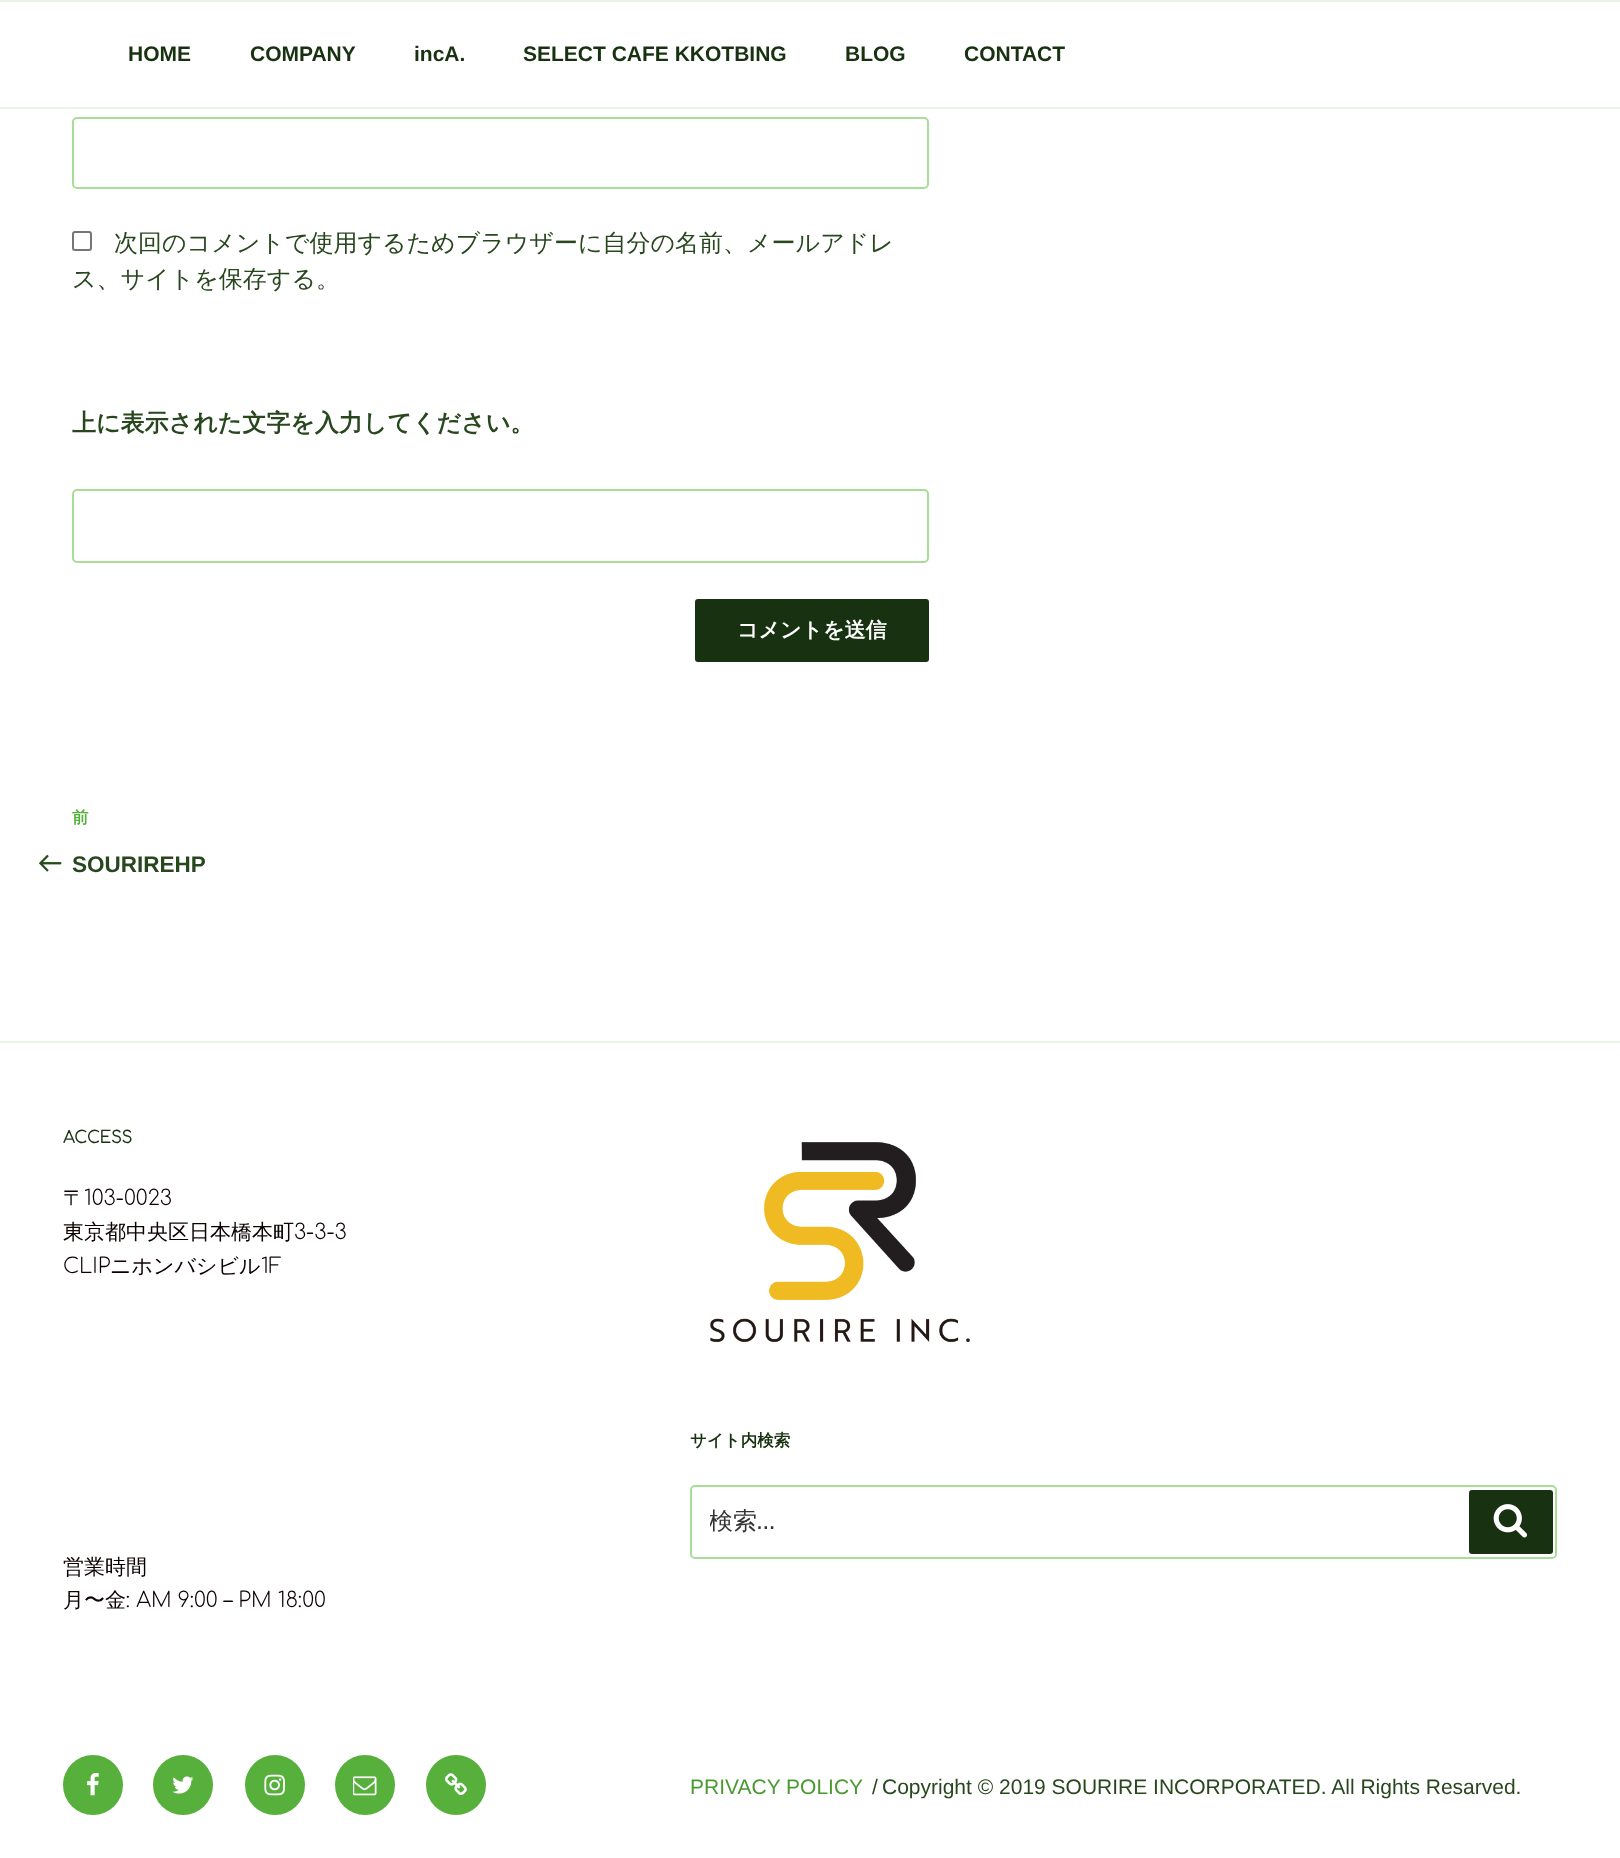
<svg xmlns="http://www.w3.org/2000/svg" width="1620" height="1858">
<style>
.a{font:bold 21px Liberation Sans;fill:#183211}
.b{font:500 24px WenQuanYi Zen Hei;fill:#28471f}
.c{font:bold 24px WenQuanYi Zen Hei;fill:#28471f}
.d{font:bold 21px WenQuanYi Zen Hei;fill:#fff}
.e{font:bold 16.5px WenQuanYi Zen Hei;fill:#56b03b}
.f{font:bold 22.5px Liberation Sans;fill:#28471f}
.g{font:bold 16.5px Comfortaa;fill:#183211}
.h{font:500 21px WenQuanYi Zen Hei;fill:#0c0000}
.i{font:300 21px Comfortaa;fill:#0c0000}
.j{font:bold 16.5px WenQuanYi Zen Hei;fill:#183211}
.k{font:500 24px WenQuanYi Zen Hei;fill:#333}
.l{font:24px Libre Franklin;fill:#333}
.m{font:21px Liberation Sans;fill:#4b9933}
.n{font:21px Liberation Sans;fill:#28471f}
</style>
<defs>
<clipPath id="clip1"><path d="M710 1508h823v31H710z"/></clipPath>
</defs>
<rect width="100%" height="100%" fill="#fff"/>
<path fill="#e8f6e4" d="M0 0h1620v2H0z"/>
<path fill="#e8f6e4" d="M0 107h1620v2H0z"/>
<rect fill="none" stroke="#a8dd98" stroke-width="2" x="73" y="118" width="855" height="70" rx="4"/>
<rect fill="none" stroke="#767676" stroke-width="2" x="73" y="232" width="18" height="18" rx="2"/>
<rect fill="none" stroke="#a8dd98" stroke-width="2" x="73" y="490" width="855" height="72" rx="4"/>
<rect fill="#183211" x="695" y="599" width="234" height="63" rx="3"/>
<image href="1.png" x="39" y="854" width="23" height="18"/>
<path fill="#e8f6e4" d="M0 1041h1620v2H0z"/>
<image href="2.png" x="710" y="1142" width="260" height="201"/>
<rect fill="none" stroke="#a8dd98" stroke-width="2" x="691" y="1486" width="865" height="72" rx="4"/>
<rect fill="#183211" x="1469" y="1490" width="84" height="64" rx="3"/>
<image href="3.png" x="1493" y="1504" width="34" height="34"/>
<circle fill="#56b03b" cx="93" cy="1785" r="30"/>
<image href="4.png" x="87" y="1773" width="12" height="23"/>
<circle fill="#56b03b" cx="183" cy="1785" r="30"/>
<image href="5.png" x="172" y="1776" width="22" height="18"/>
<circle fill="#56b03b" cx="275" cy="1785" r="30"/>
<image href="6.png" x="264" y="1774" width="21" height="22"/>
<circle fill="#56b03b" cx="365" cy="1785" r="30"/>
<image href="7.png" x="353" y="1776" width="24" height="20"/>
<circle fill="#56b03b" cx="456" cy="1785" r="30"/>
<image href="8.png" x="445" y="1773" width="22" height="23"/>
<text class="a" x="128" y="61">HOME</text>
<text class="a" x="250" y="61">COMPANY</text>
<text class="a" x="414" y="61">incA.</text>
<text class="a" x="523" y="61">SELECT CAFE KKOTBING</text>
<text class="a" x="845" y="61">BLOG</text>
<text class="a" x="964" y="61">CONTACT</text>
<text class="b" x="114" y="251">次回のコメントで使用するためブラウザーに自分の名前、メールアドレ</text>
<text class="b" x="72" y="287">ス、サイトを保存する。</text>
<text class="c" x="72" y="431">上に表示された文字を入力してください。</text>
<text class="d" x="737" y="637">コメントを送信</text>
<text class="e" x="72" y="823">前</text>
<text class="f" x="72" y="872">SOURIREHP</text>
<text class="g" x="63" y="1143">ACCESS</text>
<text class="h" x="63" y="1205">〒</text>
<text class="i" x="84" y="1205">103-0023</text>
<text class="h" x="63" y="1239">東京都中央区日本橋本町</text>
<text class="i" x="294" y="1239">3-3-3</text>
<text class="i" x="63" y="1273">CLIP</text>
<text class="h" x="110" y="1273">ニホンバシビル</text>
<text class="i" x="261" y="1273">1F</text>
<text class="h" x="63" y="1574">営業時間</text>
<text class="h" x="63" y="1607">月〜金</text>
<text class="i" x="126" y="1607">: AM 9:00 – PM 18:00</text>
<text class="j" x="690" y="1446">サイト内検索</text>
<g clip-path="url(#clip1)">
<text class="k" x="709" y="1529">検索</text>
</g>
<text class="l" x="757" y="1529">…</text>
<text class="m" x="690" y="1794">PRIVACY POLICY</text>
<text class="n" x="872" y="1794">/</text>
<text class="n" x="882" y="1794">Copyright © 2019 SOURIRE INCORPORATED. All Rights Resarved.</text>
</svg>
